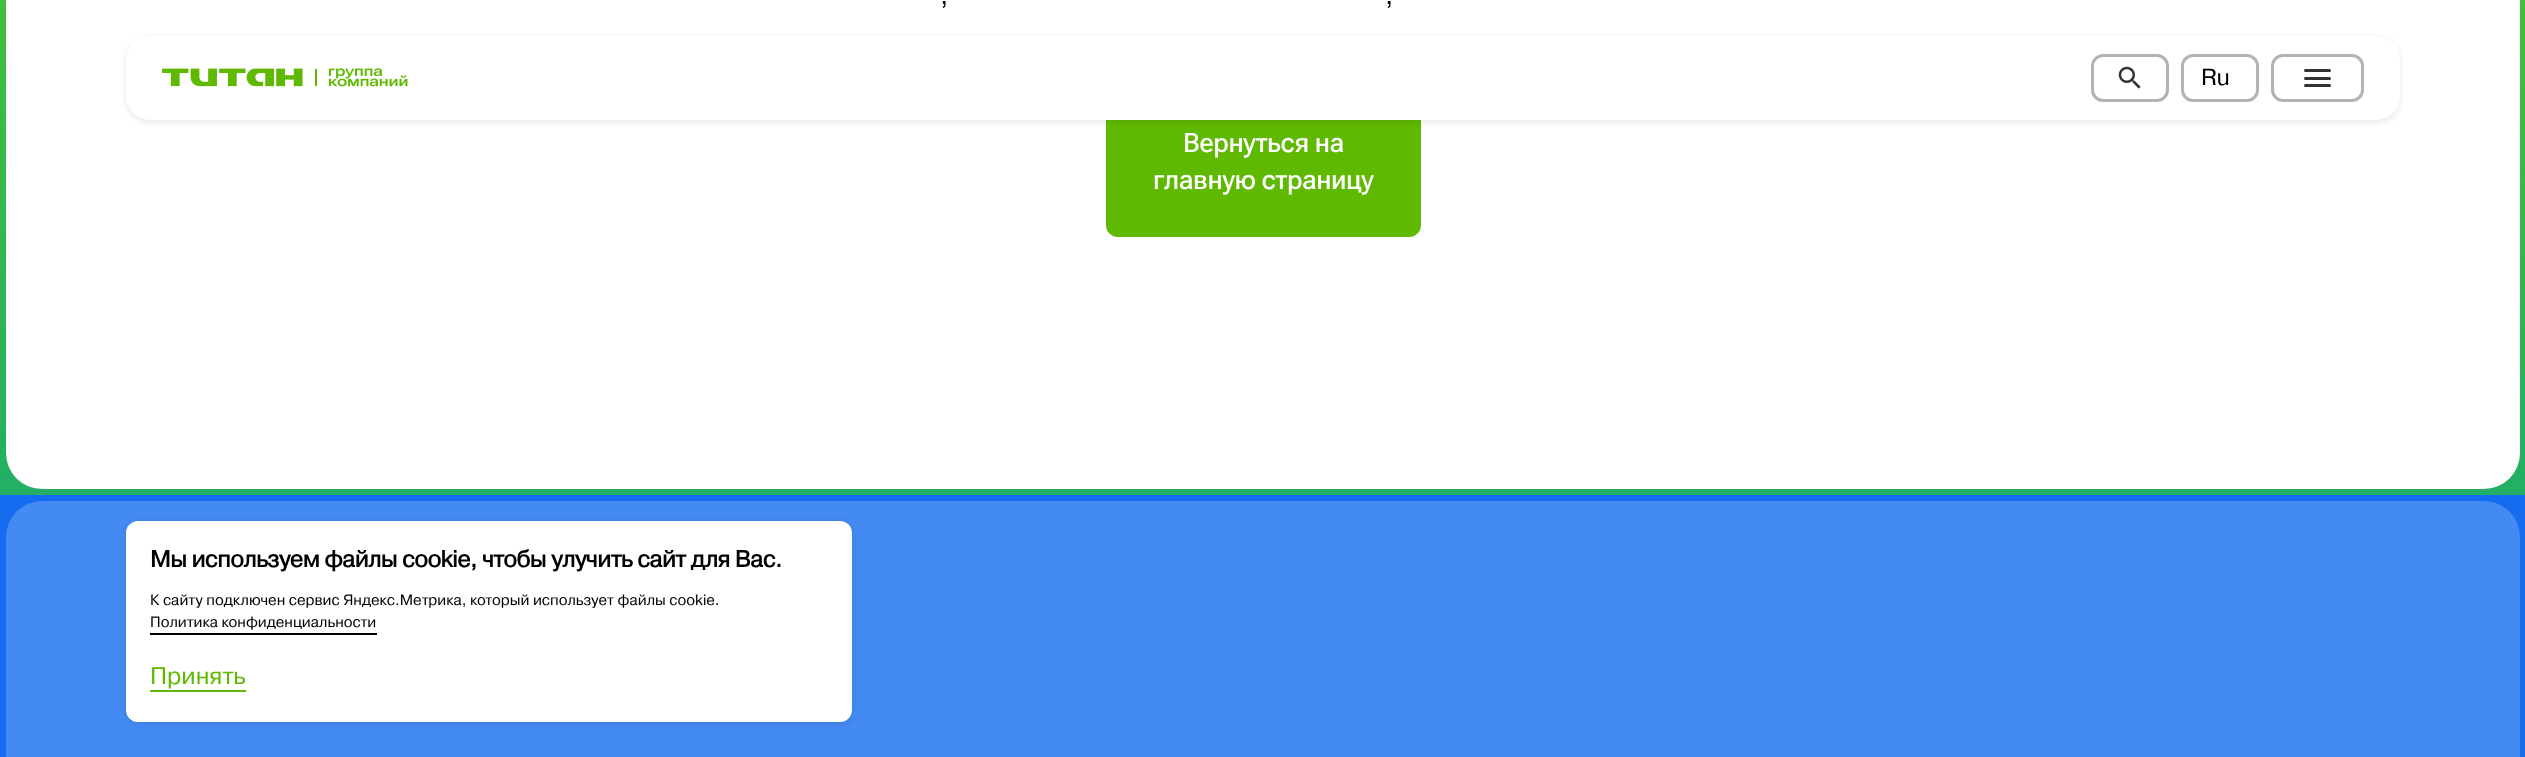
<svg xmlns="http://www.w3.org/2000/svg" width="2525" height="757">
<style>
.a{font:27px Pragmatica;fill:#000}
.b{font:500 26.75px Roboto Flex;letter-spacing:-0.5px;fill:#fff}
.c{font:23.25px Pragmatica;letter-spacing:-0.42px;fill:#000}
.d{font:bold 23.25px Pragmatica;letter-spacing:-0.42px;fill:#000}
.e{font:15px Pragmatica;fill:#000}
.f{font:24px Pragmatica;fill:#5fb900}
</style>
<defs>
<linearGradient id="g1" gradientUnits="userSpaceOnUse" x1="1263" y1="-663" x2="1263" y2="495"><stop offset="0" stop-color="#6ed306"/><stop offset="1" stop-color="#22af65"/></linearGradient>
</defs>
<rect width="100%" height="100%" fill="#fff"/>
<path fill="url(#g1)" d="M0 0h2525v495H0z"/>
<rect fill="#fff" x="6" y="-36" width="2514" height="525" rx="36"/>
<rect fill="#5fb900" x="1106" y="89" width="315" height="148" rx="12"/>
<rect fill="#0000001a" filter="blur(3px)" x="126" y="38" width="2274" height="84" rx="24"/>
<rect fill="#fff" x="126" y="36" width="2274" height="84" rx="24"/>
<image href="1.png" x="162" y="68" width="246" height="19"/>
<rect fill="none" stroke="#b3b3b3" stroke-width="3" x="2092.5" y="55.5" width="75" height="45" rx="10.5"/>
<image href="2.png" x="2118" y="66" width="23" height="23"/>
<rect fill="none" stroke="#b3b3b3" stroke-width="3" x="2182.5" y="55.5" width="75" height="45" rx="10.5"/>
<rect fill="none" stroke="#b3b3b3" stroke-width="3" x="2272.5" y="55.5" width="90" height="45" rx="10.5"/>
<rect fill="#333" x="2304" y="69" width="27" height="3" rx="1.5"/>
<rect fill="#333" x="2304" y="77" width="27" height="3" rx="1.5"/>
<rect fill="#333" x="2304" y="84" width="27" height="3" rx="1.5"/>
<path fill="#156cef" d="M0 495h2525v262H0z"/>
<rect fill="#448af3" x="6" y="501" width="2514" height="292" rx="36"/>
<rect fill="#0000001a" filter="blur(3px)" x="126" y="522" width="726" height="201" rx="12"/>
<rect fill="#fff" x="126" y="521" width="726" height="201" rx="12"/>
<path fill="#000" d="M150 633h227v2H150z"/>
<path fill="#5fb900" d="M150 690h96v2H150z"/>
<text class="a" x="940" y="4">,</text>
<text class="a" x="1385" y="4">,</text>
<text class="b" x="1183" y="152">Вернуться на</text>
<text class="b" x="1153" y="189">главную страницу</text>
<text class="c" x="2201" y="85">Ru</text>
<text class="d" x="150" y="567">Мы используем файлы cookie, чтобы улучить сайт для Вас.</text>
<text class="e" x="150" y="605">К сайту подключен сервис Яндекс.Метрика, который использует файлы cookie.</text>
<text class="e" x="150" y="627">Политика конфиденциальности</text>
<text class="f" x="150" y="684">Принять</text>
</svg>
